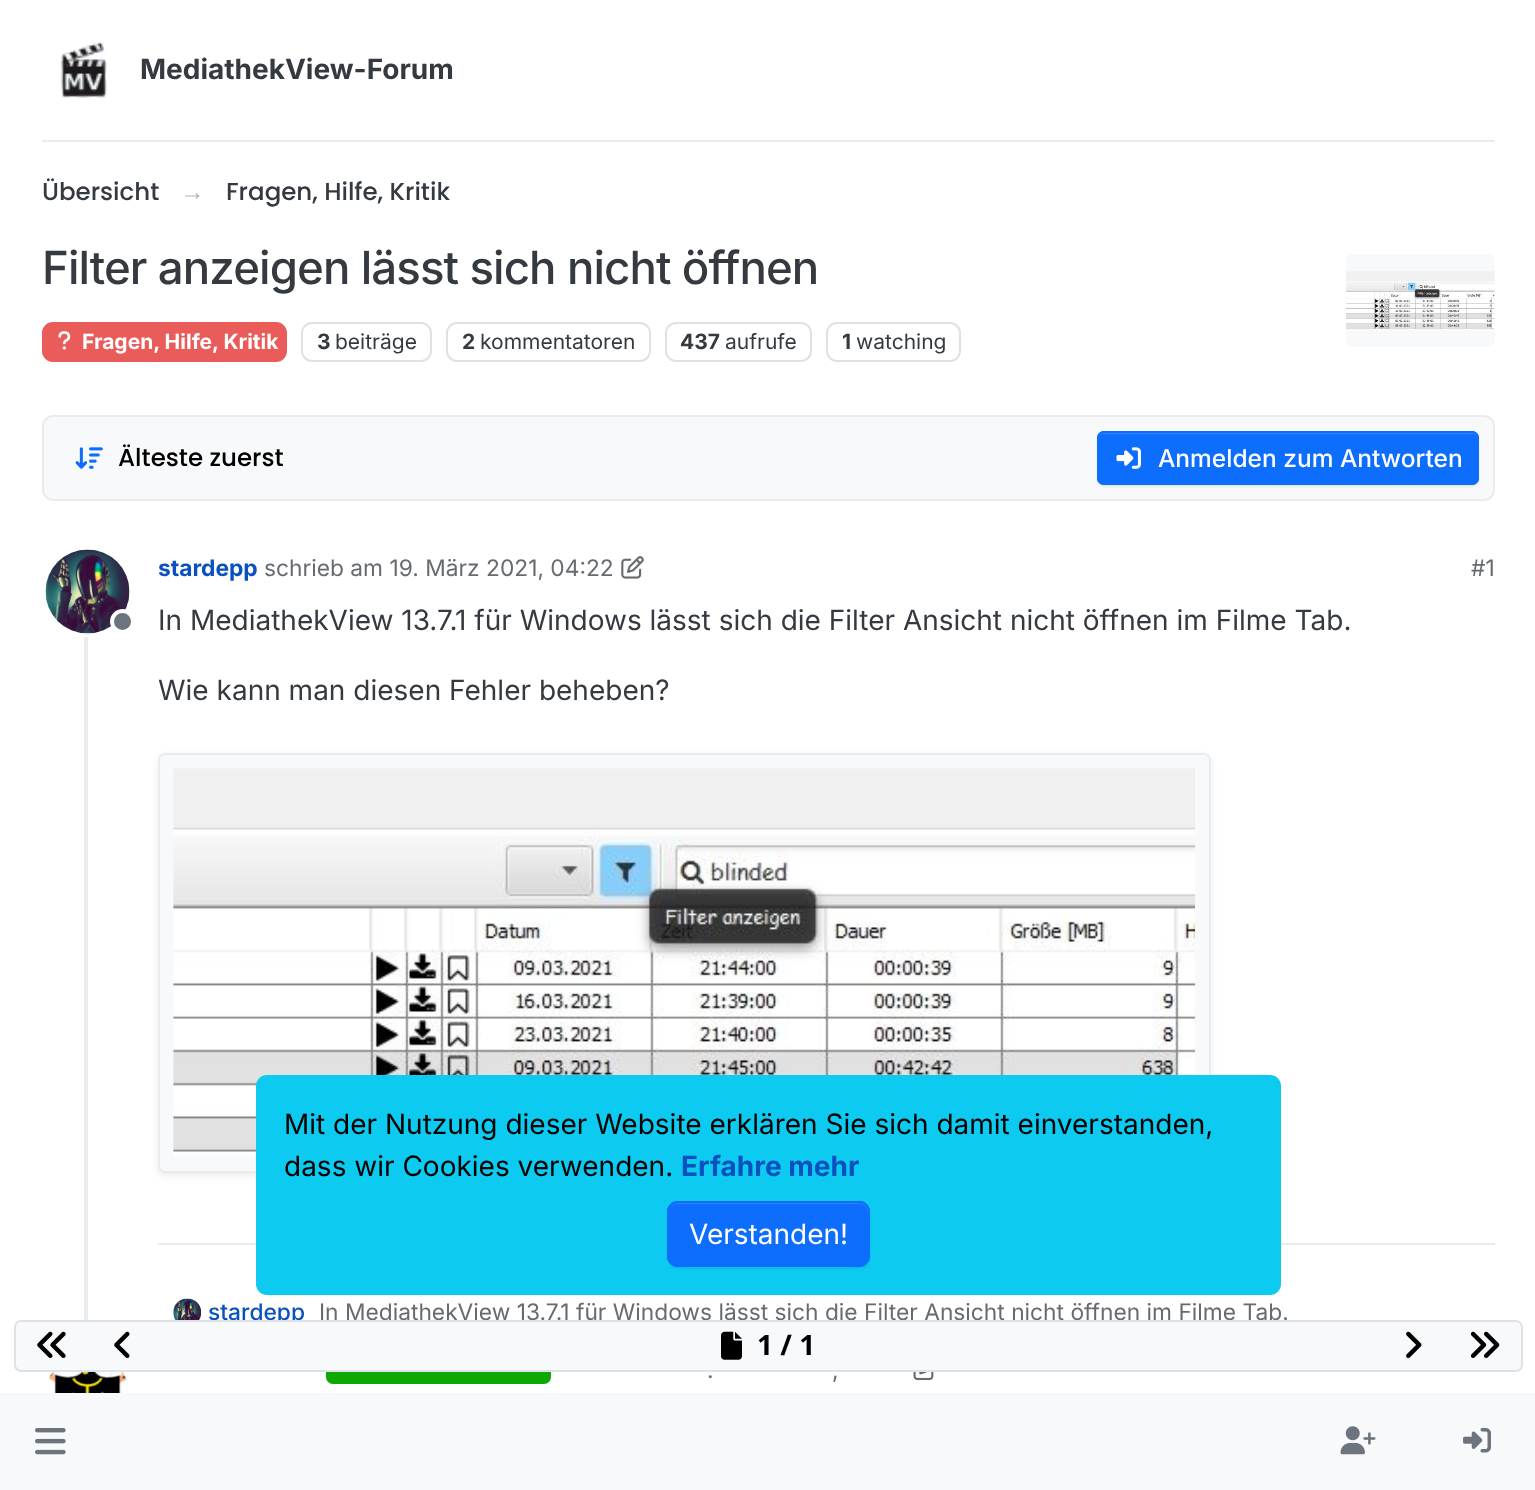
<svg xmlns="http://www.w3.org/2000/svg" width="1535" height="1490">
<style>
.a{font:bold 28px Inter;fill:#343a40}
.b{font:500 24.5px Poppins;fill:#343a40}
.c{font:24.5px Liberation Sans;fill:#adb5bd}
.d{font:500 45.6px Inter;letter-spacing:-0.9px;fill:#343a40}
.e{font:bold 21px Inter;fill:#fff}
.f{font:bold 21px Inter;fill:#343a40}
.g{font:21px Inter;fill:#343a40}
.h{font:500 24.5px Poppins;fill:#000}
.i{font:500 24.5px Inter;fill:#fff}
.j{font:bold 22.75px Inter;fill:#0951be}
.k{font:22.75px Inter;fill:#676b70}
.l{font:28px Inter;fill:#343a40}
.m{font:500 22.75px Inter;fill:#0951be}
.n{font:28px Inter;fill:#000}
.o{font:bold 28px Inter;fill:#0951be}
.p{font:28px Inter;fill:#fff}
.q{font:bold 28px Noto Sans;fill:#000}
</style>
<rect width="100%" height="100%" fill="#fff"/>
<path fill="#e9ecef" d="M42 140h1453v2H42z"/>
<image href="1.png" x="60" y="42" width="47" height="56"/>
<rect fill="#e95c5a" stroke="#e95c5a" stroke-width="2" x="43" y="323" width="243" height="38" rx="10"/>
<image href="2.png" x="58" y="331" width="13" height="19"/>
<rect fill="none" stroke="#dee2e6" stroke-width="2" x="302" y="323" width="129" height="38" rx="10"/>
<rect fill="none" stroke="#dee2e6" stroke-width="2" x="447" y="323" width="203" height="38" rx="10"/>
<rect fill="none" stroke="#dee2e6" stroke-width="2" x="666" y="323" width="145" height="38" rx="10"/>
<rect fill="none" stroke="#dee2e6" stroke-width="2" x="827" y="323" width="133" height="38" rx="10"/>
<rect fill="#f8f9fa" x="1346" y="254" width="149" height="93" rx="7"/>
<image href="3.png" x="1345" y="271" width="150" height="58"/>
<rect fill="#f8f9fa" stroke="#e9ecef" stroke-width="2" x="43" y="416" width="1451" height="84" rx="10"/>
<image href="4.png" x="75" y="447" width="28" height="22"/>
<rect fill="#00000012" filter="blur(1px)" x="1097" y="432" width="382" height="55" rx="7"/>
<rect fill="#0d6efd" x="1097" y="431" width="382" height="54" rx="7"/>
<path fill="#3184fd" d="M1104 434h368c3 0 5 2 5 5v-2c0-3-2-5-5-5h-368c-3 0-5 2-5 5v2c0-3 2-5 5-5z"/>
<rect fill="none" stroke="#0d6efd" stroke-width="2" x="1098" y="432" width="380" height="52" rx="6"/>
<image href="5.png" x="1116" y="447" width="25" height="22"/>
<path fill="#e9ecef" d="M84 636h4v684H84z"/>
<circle fill="none" stroke="#fff" stroke-width="4" cx="87.5" cy="591.5" r="43.5"/>
<image href="6.png" x="45" y="549" width="85" height="85"/>
<circle fill="#6c757d" stroke="#fff" stroke-width="4" cx="122.5" cy="621.5" r="10.5"/>
<image href="7.png" x="621" y="556" width="23" height="23"/>
<rect fill="#00000012" filter="blur(3.5px)" x="158" y="756" width="1053" height="420" rx="7"/>
<rect fill="#f8f9fa" stroke="#e9ecef" stroke-width="2" x="159" y="754" width="1051" height="418" rx="6"/>
<image href="8.png" x="173" y="768" width="1023" height="389"/>
<path fill="#e9ecef" d="M158 1243h1337v2H158z"/>
<image href="9.png" x="173" y="1298" width="29" height="22"/>
<image href="10.png" x="48" y="1372" width="80" height="21"/>
<rect fill="#0ea800" x="326" y="1355" width="225" height="29" rx="7"/>
<image href="11.png" x="913" y="1372" width="21" height="9"/>
<rect fill="#0dcaf0" x="256" y="1075" width="1025" height="220" rx="11"/>
<rect fill="#00000012" filter="blur(1px)" x="667" y="1202" width="203" height="67" rx="11"/>
<rect fill="#0d6efd" x="667" y="1201" width="203" height="66" rx="11"/>
<path fill="#3184fd" d="M677 1204h182c5 0 9 4 9 9v-2c0-5-4-9-9-9h-181c-4 0-7 2-8 6c1-2 4-4 7-4z"/>
<rect fill="none" stroke="#0d6efd" stroke-width="2" x="668" y="1202" width="201" height="64" rx="10"/>
<path fill="#f8f9fa" d="M0 1393h1535v97H0z"/>
<image href="17.png" x="35" y="1428" width="31" height="27"/>
<image href="18.png" x="1340" y="1426" width="36" height="29"/>
<image href="19.png" x="1463" y="1428" width="28" height="25"/>
<text class="a" x="140" y="79">MediathekView-Forum</text>
<text class="b" x="42" y="200">Übersicht</text>
<text class="c" x="180" y="200">→</text>
<text class="b" x="226" y="200">Fragen, Hilfe, Kritik</text>
<text class="d" x="42" y="284">Filter anzeigen lässt sich nicht öffnen</text>
<text class="e" x="82" y="349">Fragen, Hilfe, Kritik</text>
<text class="f" x="317" y="349">3</text>
<text class="g" x="335" y="349">beiträge</text>
<text class="f" x="462" y="349">2</text>
<text class="g" x="480" y="349">kommentatoren</text>
<text class="f" x="680" y="349">437</text>
<text class="g" x="725" y="349">aufrufe</text>
<text class="f" x="842" y="349">1</text>
<text class="g" x="856" y="349">watching</text>
<text class="h" x="118" y="466">Älteste zuerst</text>
<text class="i" x="1158" y="467">Anmelden zum Antworten</text>
<text class="j" x="158" y="576">stardepp</text>
<text class="k" x="264" y="576">schrieb am 19. März 2021, 04:22</text>
<text class="k" x="1471" y="576">#1</text>
<text class="l" x="158" y="630">In MediathekView 13.7.1 für Windows lässt sich die Filter Ansicht nicht öffnen im Filme Tab.</text>
<text class="l" x="158" y="700">Wie kann man diesen Fehler beheben?</text>
<text class="m" x="208" y="1320">stardepp</text>
<text class="k" x="319" y="1320">In MediathekView 13.7.1 für Windows lässt sich die Filter Ansicht nicht öffnen im Filme Tab.</text>
<text class="k" x="707" y="1378">.</text>
<text class="k" x="832" y="1378">,</text>
<text class="n" x="284" y="1134">Mit der Nutzung dieser Website erklären Sie sich damit einverstanden,</text>
<text class="n" x="284" y="1176">dass wir Cookies verwenden.</text>
<text class="o" x="681" y="1176">Erfahre mehr</text>
<text class="p" x="689" y="1244">Verstanden!</text>
<rect fill="#f8f9fa" stroke="#dee2e6" stroke-width="2" x="15" y="1321" width="1507" height="50" rx="6"/>
<image href="12.png" x="37" y="1331" width="29" height="27"/>
<image href="13.png" x="114" y="1331" width="16" height="27"/>
<image href="14.png" x="721" y="1331" width="21" height="29"/>
<text class="q" x="757" y="1355">1 / 1</text>
<image href="15.png" x="1406" y="1331" width="16" height="27"/>
<image href="16.png" x="1470" y="1331" width="30" height="27"/>
</svg>
